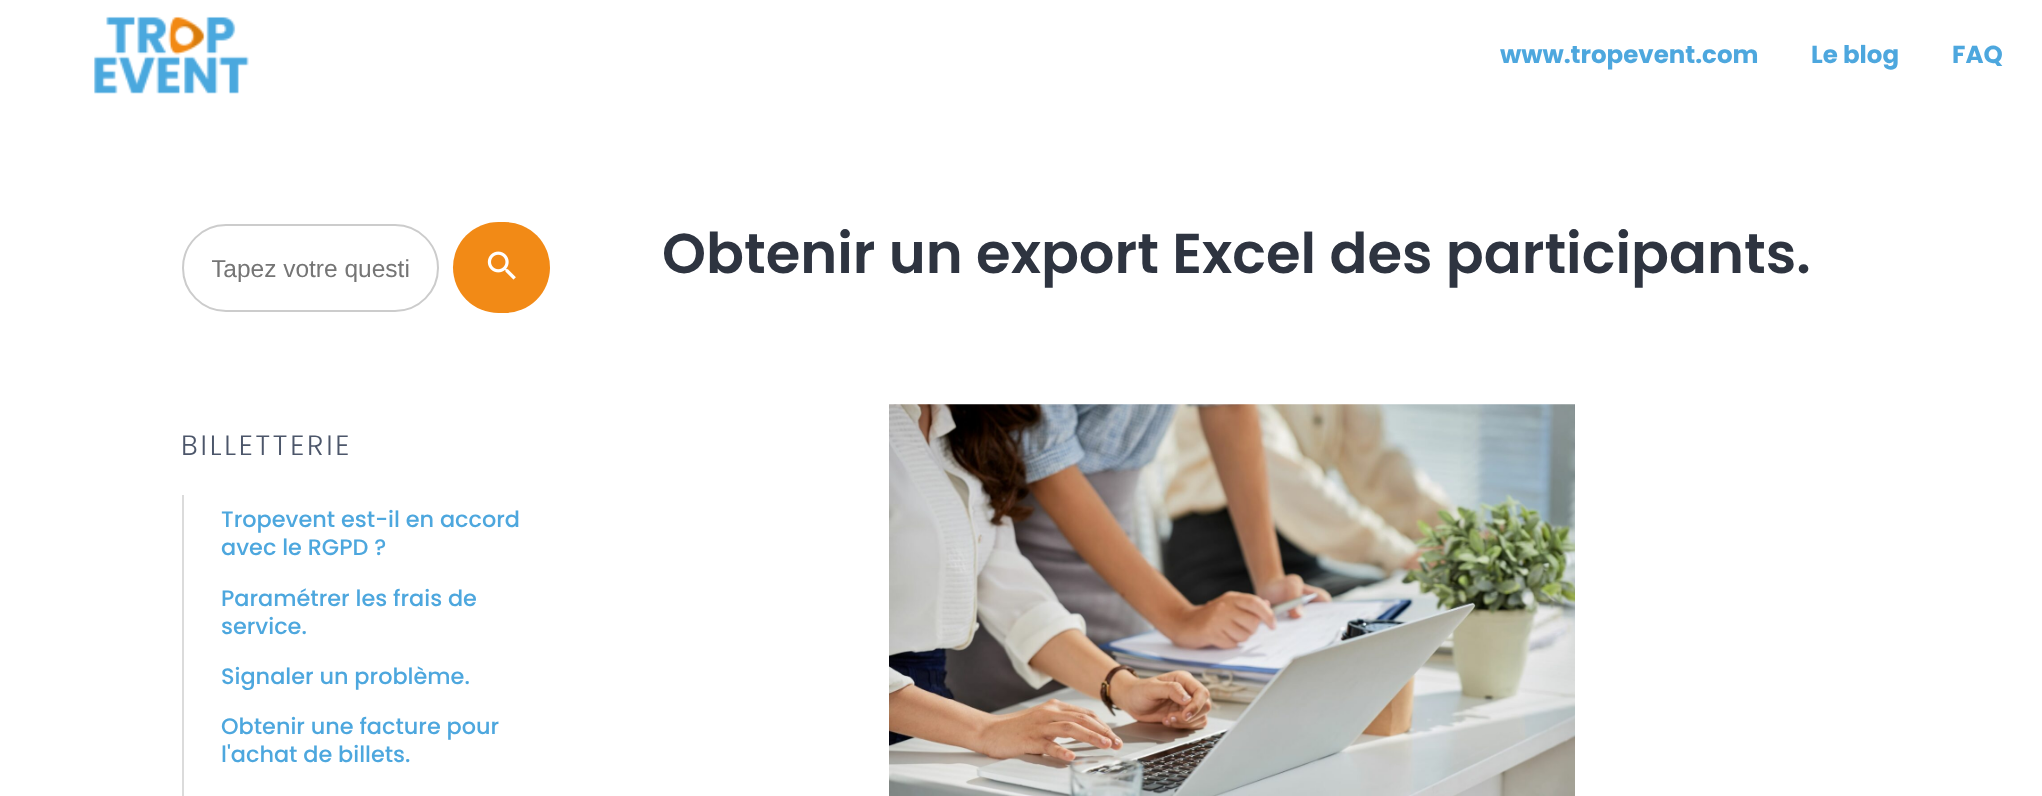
<svg xmlns="http://www.w3.org/2000/svg" width="2042" height="796">
<style>
.a{font:bold 24.5px Poppins;fill:#4da7de}
.b{font:24.5px Liberation Sans;fill:#757575}
.c{font:300 28px Poppins;letter-spacing:2.75px;fill:#4c566a}
.d{font:500 22.4px Poppins;fill:#4da7de}
.e{font:600 56px Poppins;fill:#2e3440}
</style>
<defs>
<clipPath id="clip1"><path d="M212 254h198v28H212z"/></clipPath>
</defs>
<rect width="100%" height="100%" fill="#fff"/>
<image href="1.png" x="94" y="16" width="155" height="78"/>
<rect fill="none" stroke="#ccc" stroke-width="2" x="183" y="225" width="255" height="86" rx="43"/>
<rect fill="#f28a16" x="453" y="222" width="97" height="91" rx="45.5"/>
<image href="2.png" x="487" y="251" width="29" height="29"/>
<path fill="#dbdbdb" d="M182 495h2v301H182z"/>
<image href="3.png" x="889" y="404" width="686" height="392"/>
<text class="a" x="1500" y="63">www.tropevent.com</text>
<text class="a" x="1811" y="63">Le blog</text>
<text class="a" x="1952" y="63">FAQ</text>
<g clip-path="url(#clip1)">
<text class="b" x="211" y="277">Tapez votre questi</text>
</g>
<text class="c" x="181" y="455">BILLETTERIE</text>
<text class="d" x="221" y="527">Tropevent est-il en accord</text>
<text class="d" x="221" y="555">avec le RGPD ?</text>
<text class="d" x="221" y="606">Paramétrer les frais de</text>
<text class="d" x="221" y="634">service.</text>
<text class="d" x="221" y="684">Signaler un problème.</text>
<text class="d" x="221" y="734">Obtenir une facture pour</text>
<text class="d" x="221" y="762">l'achat de billets.</text>
<text class="e" x="662" y="273">Obtenir un export Excel des participants.</text>
</svg>
